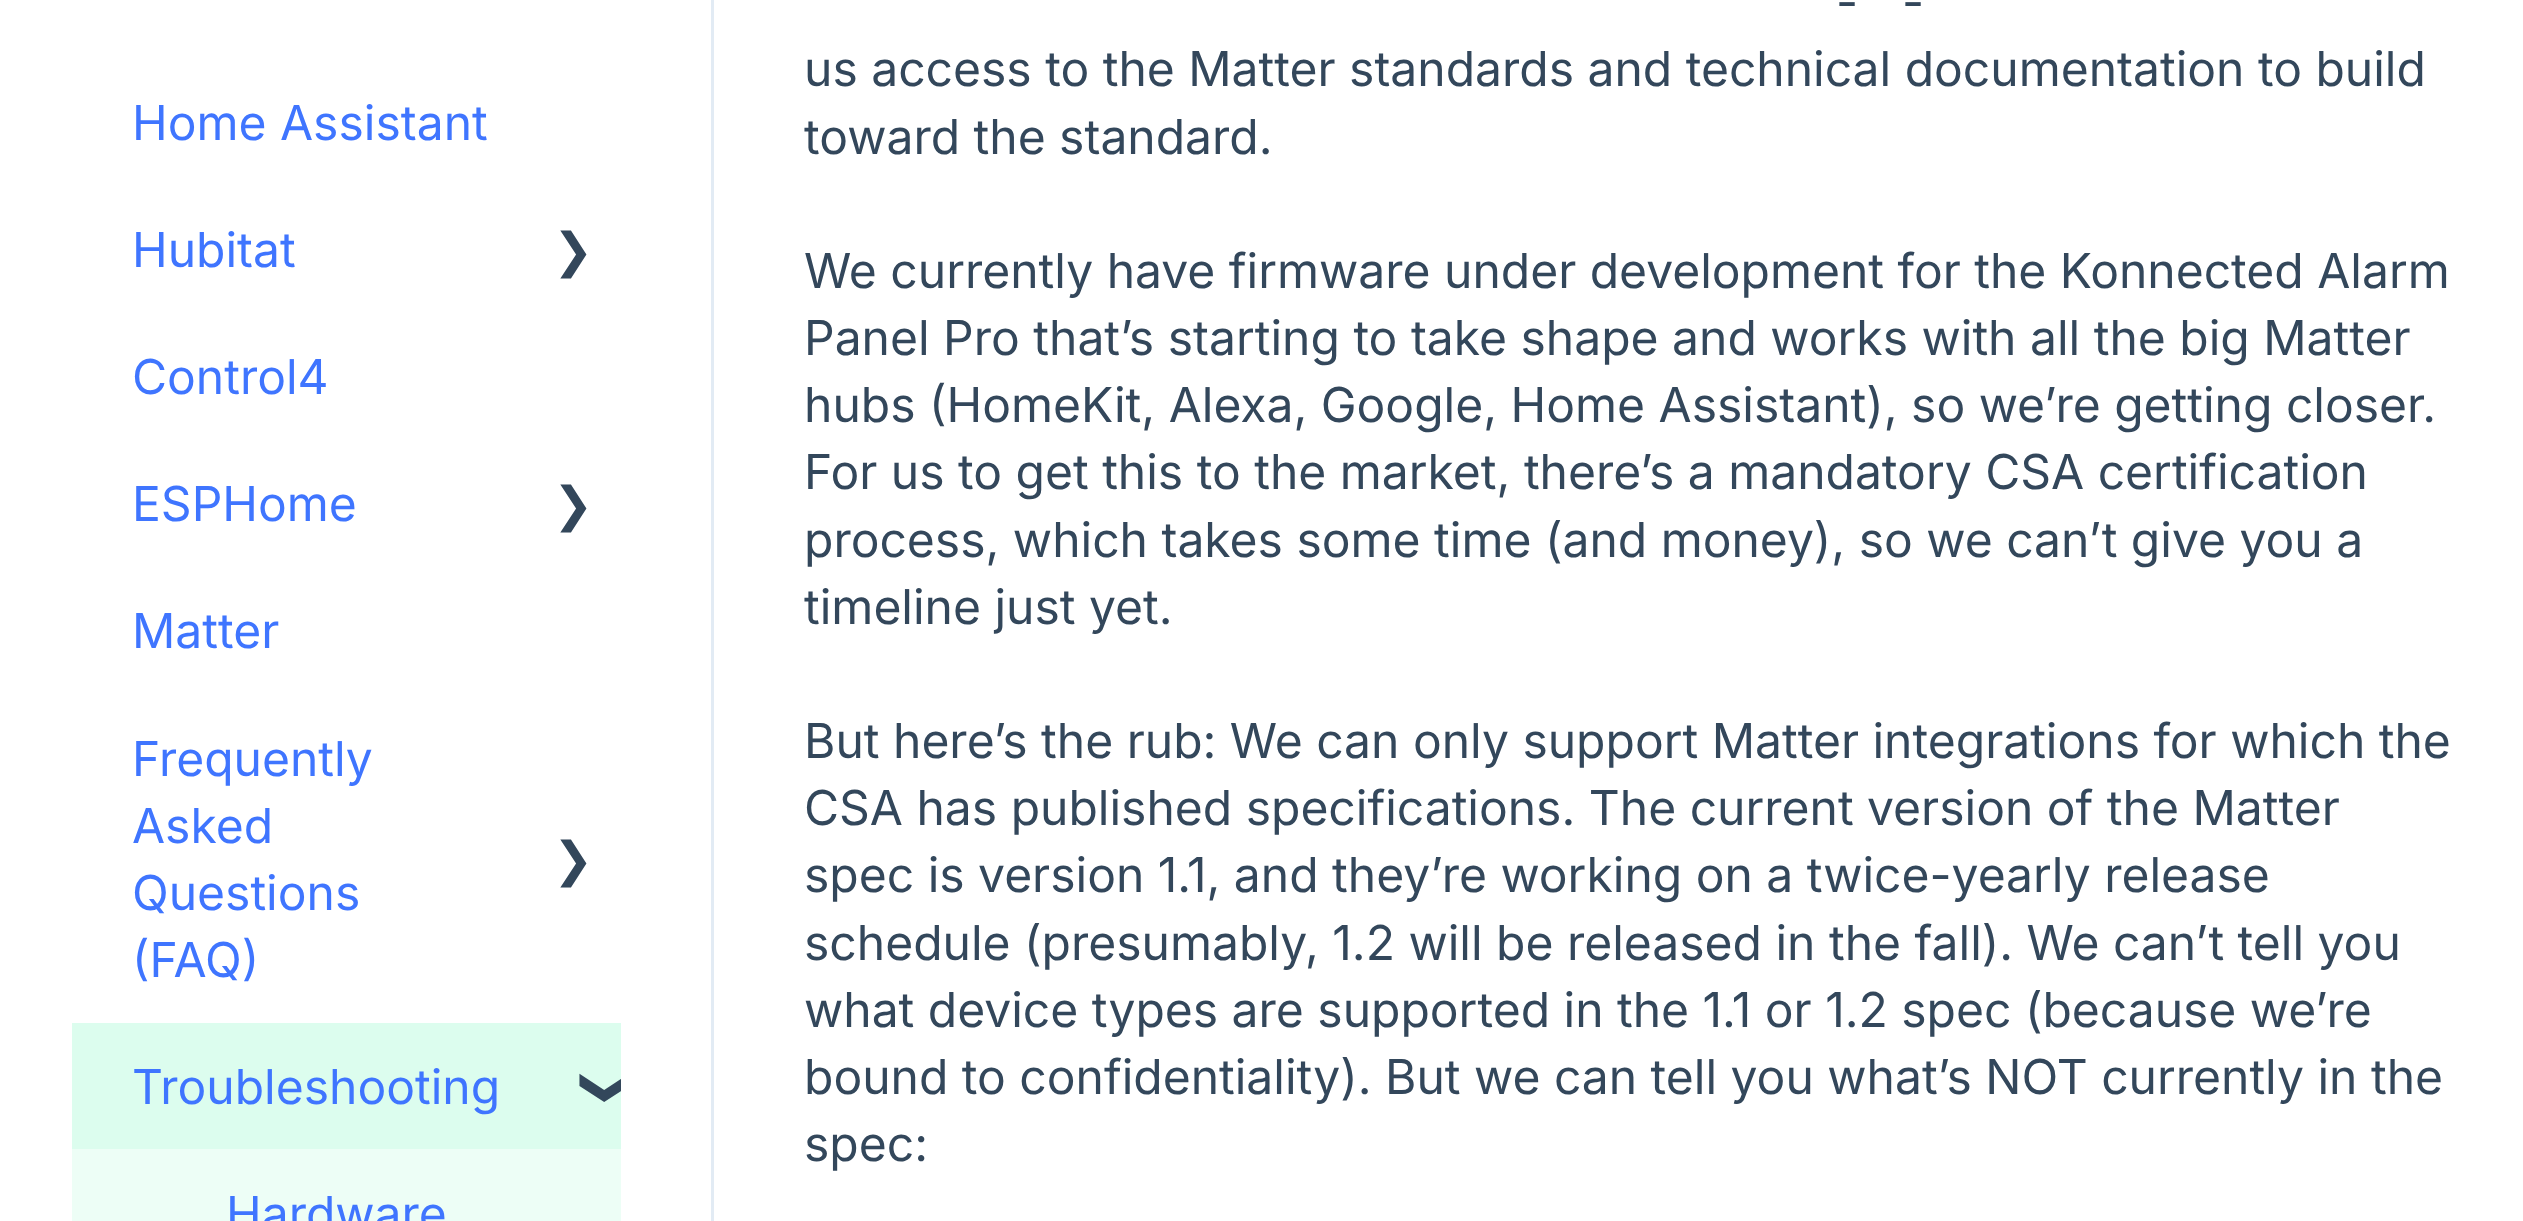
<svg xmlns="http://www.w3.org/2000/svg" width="2523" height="1221">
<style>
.a{font:48px Inter;fill:#3f75ff}
.b{font:48px DejaVu Sans;fill:#33475b}
.c{font:bold 48px DejaVu Sans;fill:#33475b}
.d{font:48px Inter;fill:#33475b}
</style>
<defs>
<clipPath id="clip1"><path d="M72 1023h549v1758H72z"/></clipPath>
</defs>
<rect width="100%" height="100%" fill="#fff"/>
<path fill="#e2ebf4" d="M711 0h3v1221H711z"/>
<path fill="#edfef6" d="M72 1149h549v72H72z"/>
<path fill="#dcfdee" d="M72 1023h549v126H72z"/>
<text class="a" x="132" y="140">Home Assistant</text>
<text class="a" x="132" y="267">Hubitat</text>
<text class="b" x="553" y="267">❯</text>
<text class="a" x="132" y="394">Control4</text>
<text class="a" x="132" y="521">ESPHome</text>
<text class="b" x="553" y="521">❯</text>
<text class="a" x="132" y="648">Matter</text>
<text class="a" x="132" y="776">Frequently</text>
<text class="a" x="132" y="843">Asked</text>
<text class="a" x="132" y="910">Questions</text>
<text class="a" x="132" y="977">(FAQ)</text>
<text class="b" x="553" y="876">❯</text>
<text class="a" x="132" y="1104">Troubleshooting</text>
<g clip-path="url(#clip1)">
<text class="c" x="591" y="1067" transform="rotate(90 591 1067)">❯</text>
</g>
<text class="a" x="226" y="1231">Hardware</text>
<text class="d" x="1836" y="19">-</text>
<text class="d" x="1902" y="19">-</text>
<text class="d" x="804" y="86">us access to the Matter standards and technical documentation to build</text>
<text class="d" x="804" y="154">toward the standard.</text>
<text class="d" x="804" y="288">We currently have firmware under development for the Konnected Alarm</text>
<text class="d" x="804" y="355">Panel Pro that’s starting to take shape and works with all the big Matter</text>
<text class="d" x="804" y="422">hubs (HomeKit, Alexa, Google, Home Assistant), so we’re getting closer.</text>
<text class="d" x="804" y="489">For us to get this to the market, there’s a mandatory CSA certification</text>
<text class="d" x="804" y="557">process, which takes some time (and money), so we can’t give you a</text>
<text class="d" x="804" y="624">timeline just yet.</text>
<text class="d" x="804" y="758">But here’s the rub: We can only support Matter integrations for which the</text>
<text class="d" x="804" y="825">CSA has published specifications. The current version of the Matter</text>
<text class="d" x="804" y="892">spec is version 1.1, and they’re working on a twice-yearly release</text>
<text class="d" x="804" y="960">schedule (presumably, 1.2 will be released in the fall). We can’t tell you</text>
<text class="d" x="804" y="1027">what device types are supported in the 1.1 or 1.2 spec (because we’re</text>
<text class="d" x="804" y="1094">bound to confidentiality). But we can tell you what’s NOT currently in the</text>
<text class="d" x="804" y="1161">spec:</text>
</svg>
